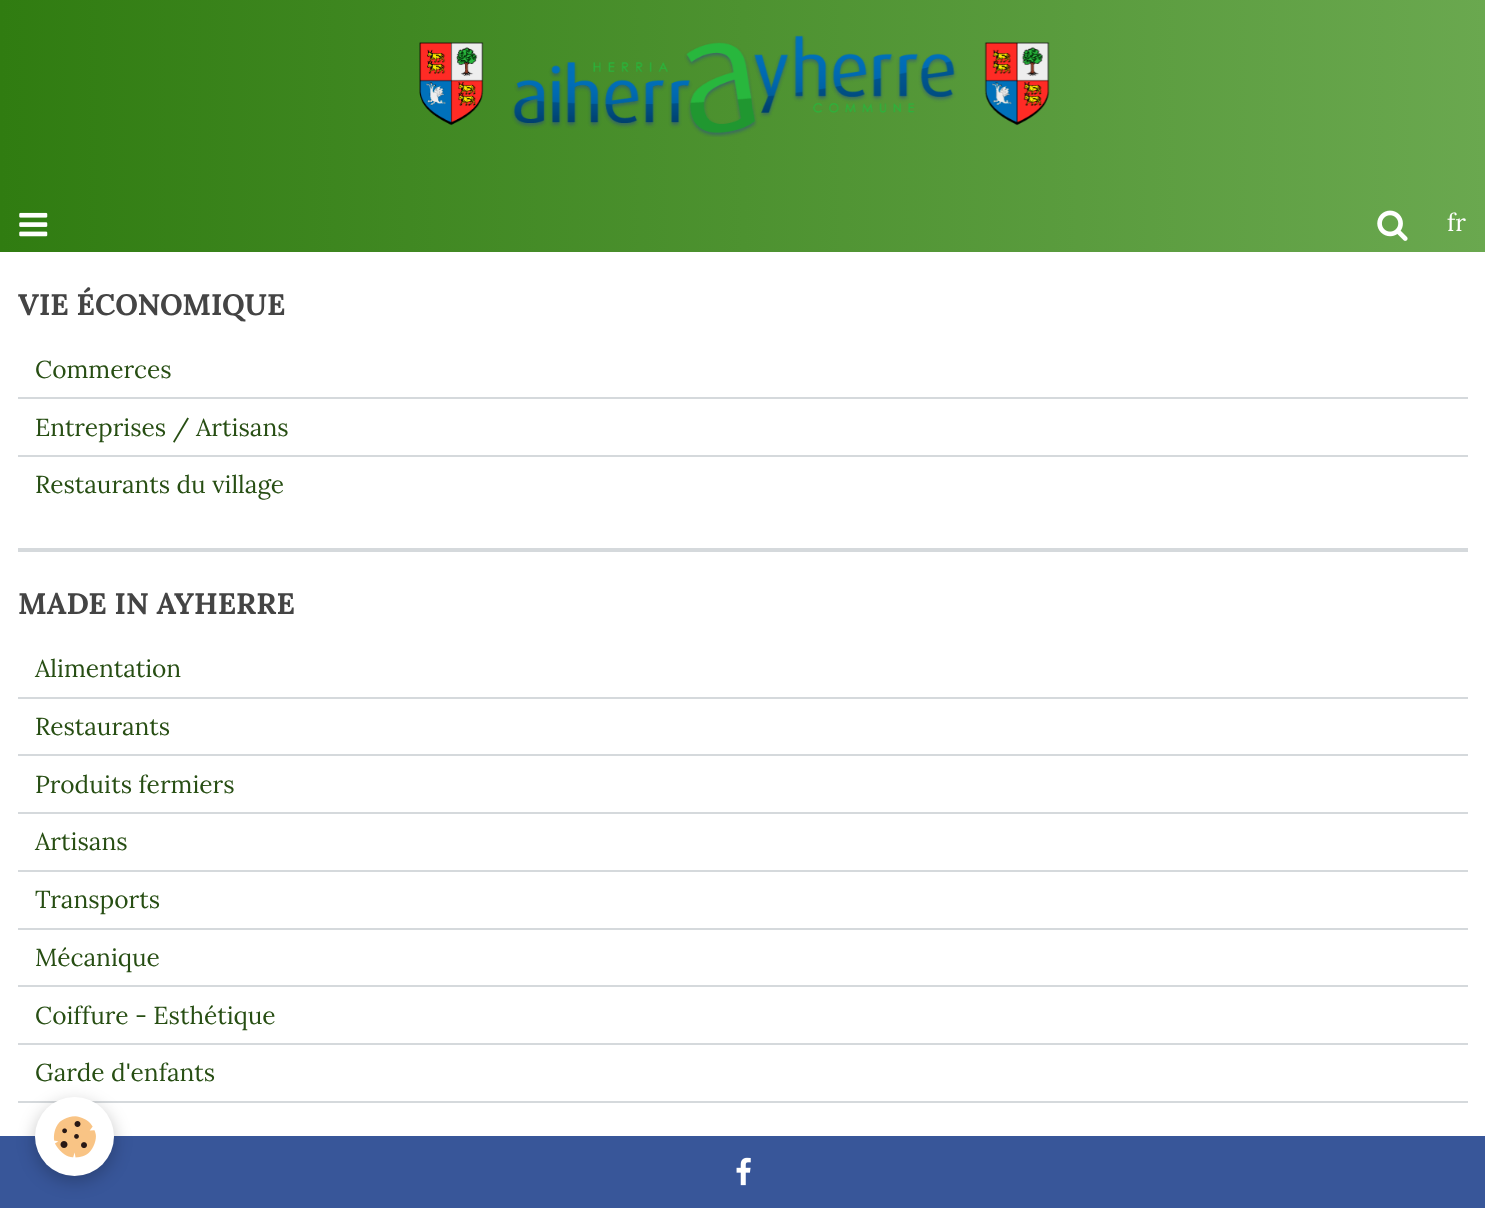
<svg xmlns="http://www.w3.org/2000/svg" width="1485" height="1208">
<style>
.a{font:24.5px Lora;fill:#fff}
.b{font:bold 29.5px Lora;fill:#444}
.c{font:24.5px Lora;fill:#274e13}
</style>
<defs>
<linearGradient id="g1" gradientUnits="userSpaceOnUse" x1="0" y1="126" x2="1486" y2="126"><stop offset="0" stop-color="#307c11"/><stop offset="1" stop-color="#6aa84f"/></linearGradient>
</defs>
<rect width="100%" height="100%" fill="#fff"/>
<path fill="url(#g1)" d="M0 0h1485v252H0z"/>
<image href="1.png" x="419" y="35" width="631" height="102"/>
<image href="2.png" x="19" y="212" width="29" height="25"/>
<image href="3.png" x="1377" y="210" width="31" height="31"/>
<path fill="#d5d9dc" d="M18 397h1450v2H18z"/>
<path fill="#d5d9dc" d="M18 455h1450v2H18z"/>
<path fill="#d5d9dc" d="M18 548h1450v4H18z"/>
<path fill="#d5d9dc" d="M18 697h1450v2H18z"/>
<path fill="#d5d9dc" d="M18 754h1450v2H18z"/>
<path fill="#d5d9dc" d="M18 812h1450v2H18z"/>
<path fill="#d5d9dc" d="M18 870h1450v2H18z"/>
<path fill="#d5d9dc" d="M18 928h1450v2H18z"/>
<path fill="#d5d9dc" d="M18 985h1450v2H18z"/>
<path fill="#d5d9dc" d="M18 1043h1450v2H18z"/>
<path fill="#d5d9dc" d="M18 1101h1450v2H18z"/>
<path fill="#385699" d="M0 1136h1485v72H0z"/>
<rect fill="#0000003d" filter="blur(9px)" x="35" y="1103" width="79" height="78" rx="39"/>
<circle fill="#fff" cx="74.5" cy="1136.5" r="39.5"/>
<image href="4.png" x="53" y="1116" width="43" height="42"/>
<image href="5.png" x="736" y="1157" width="15" height="29"/>
<text class="a" x="1447" y="231">fr</text>
<text class="b" x="18" y="315">VIE ÉCONOMIQUE</text>
<text class="c" x="35" y="378">Commerces</text>
<text class="c" x="35" y="436">Entreprises / Artisans</text>
<text class="c" x="35" y="493">Restaurants du village</text>
<text class="b" x="18" y="614">MADE IN AYHERRE</text>
<text class="c" x="35" y="677">Alimentation</text>
<text class="c" x="35" y="735">Restaurants</text>
<text class="c" x="35" y="793">Produits fermiers</text>
<text class="c" x="35" y="850">Artisans</text>
<text class="c" x="35" y="908">Transports</text>
<text class="c" x="35" y="966">Mécanique</text>
<text class="c" x="35" y="1024">Coiffure - Esthétique</text>
<text class="c" x="35" y="1081">Garde d'enfants</text>
</svg>
